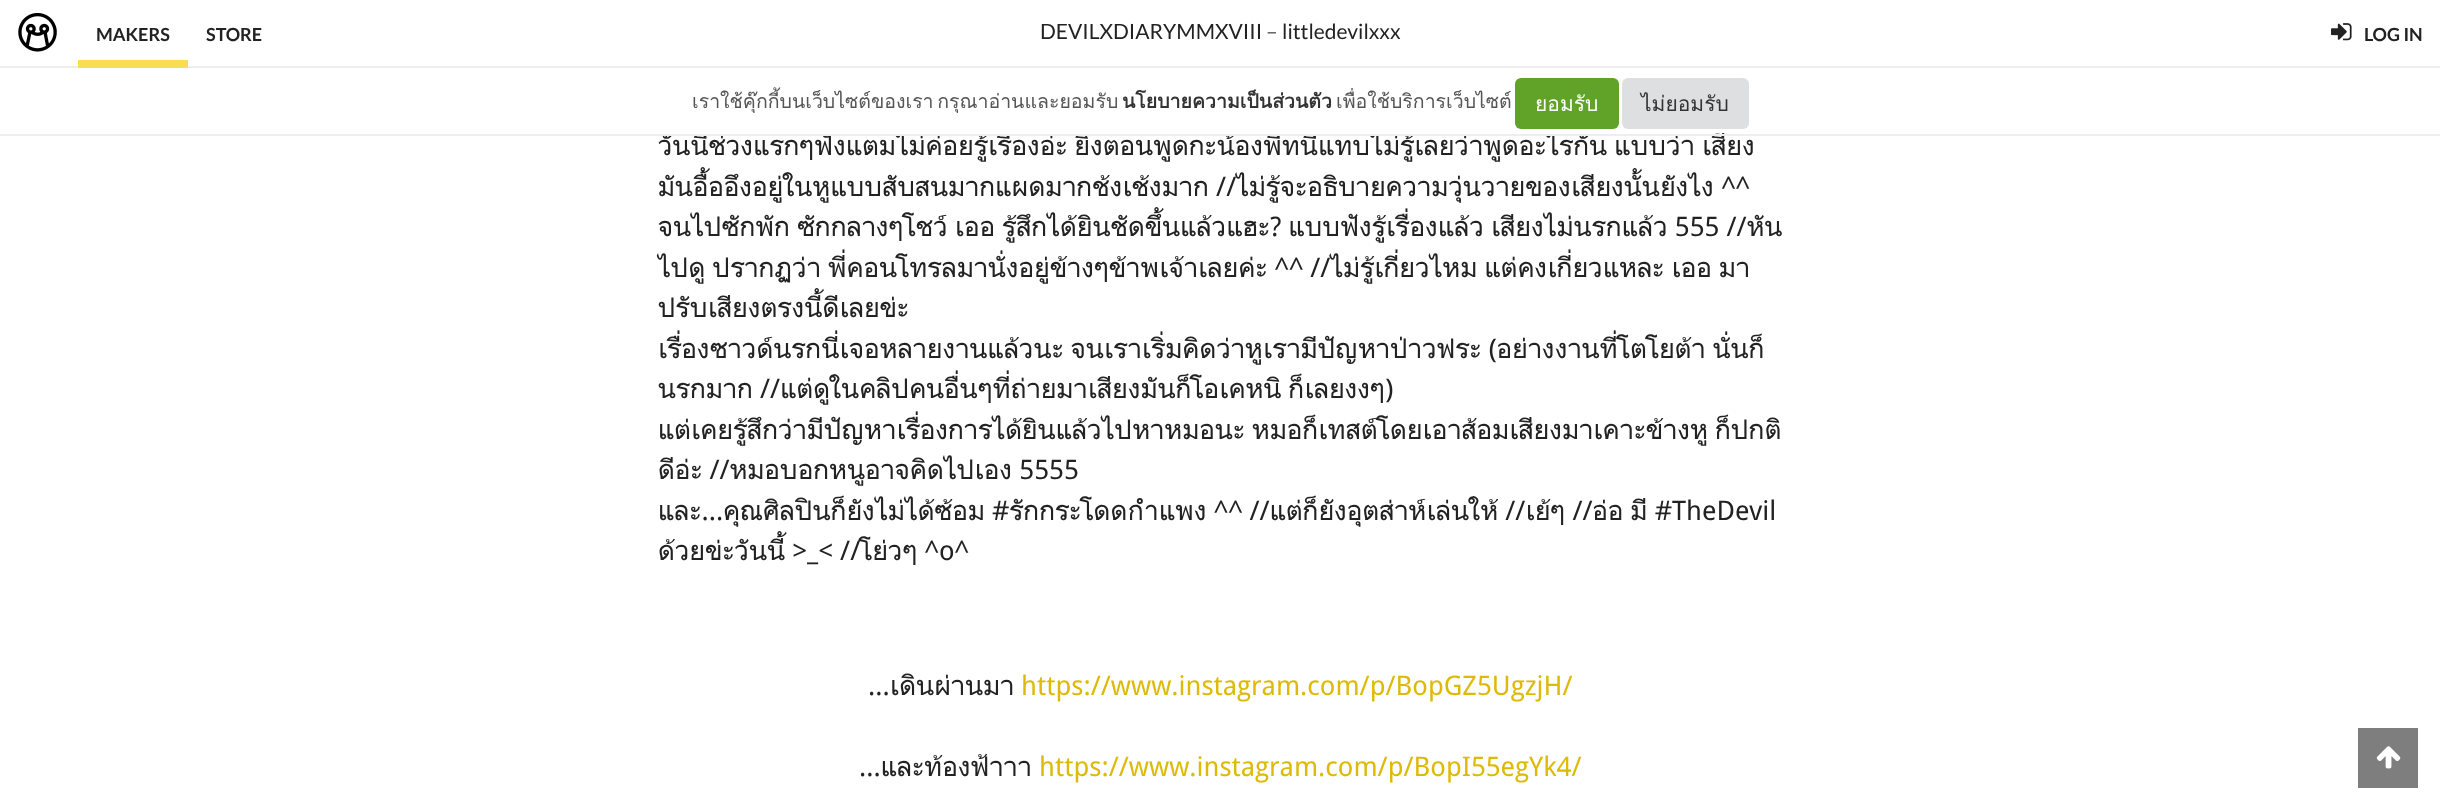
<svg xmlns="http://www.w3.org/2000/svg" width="2440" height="810">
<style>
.a{font:21px Lato;fill:#222}
.b{font:21px Lato;fill:#555}
.c{font:27px Droid Sans;fill:#222}
.d{font:27px Droid Sans;fill:#deba08}
.e{font:bold 18px Lato;fill:#222}
.f{font:19.5px Loma;fill:#555}
.g{font:bold 19.5px Loma;fill:#333}
.h{font:21px Loma;fill:#fff}
.i{font:21px Loma;fill:#333}
</style>
<rect width="100%" height="100%" fill="#fff"/>
<path fill="#7e7e7e" d="M2358 728h60v60H2358z"/>
<image href="1.png" x="2376" y="746" width="25" height="23"/>
<path fill="#eee" d="M0 66h2440v2H0z"/>
<image href="2.png" x="18" y="12" width="39" height="40"/>
<path fill="#f9dd53" d="M78 60h110v8H78z"/>
<image href="3.png" x="2331" y="23" width="21" height="18"/>
<text class="a" x="1040" y="39">DEVILXDIARYMMXVIII</text>
<text class="b" x="1266" y="39">–</text>
<text class="a" x="1282" y="39">littledevilxxx</text>
<text class="c" x="658" y="155">วันนี้ช่วงแรกๆฟังแตมไม่ค่อยรู้เรื่องอ่ะ ยิ่งตอนพูดกะน้องพีทนี่แทบไม่รู้เลยว่าพูดอะไรกัน แบบว่า เสียง</text>
<text class="c" x="658" y="196">มันอื้ออึงอยู่ในหูแบบสับสนมากแผดมากช้งเช้งมาก //ไม่รู้จะอธิบายความวุ่นวายของเสียงนั้นยังไง ^^</text>
<text class="c" x="658" y="236">จนไปซักพัก ซักกลางๆโชว์ เออ รู้สึกได้ยินชัดขึ้นแล้วแฮะ? แบบฟังรู้เรื่องแล้ว เสียงไม่นรกแล้ว 555 //หัน</text>
<text class="c" x="658" y="277">ไปดู ปรากฏว่า พี่คอนโทรลมานั่งอยู่ข้างๆข้าพเจ้าเลยค่ะ ^^ //ไม่รู้เกี่ยวไหม แต่คงเกี่ยวแหละ เออ มา</text>
<text class="c" x="658" y="317">ปรับเสียงตรงนี้ดีเลยข่ะ</text>
<text class="c" x="658" y="358">เรื่องซาวด์นรกนี่เจอหลายงานแล้วนะ จนเราเริ่มคิดว่าหูเรามีปัญหาป่าวฟระ (อย่างงานที่โตโยต้า นั่นก็</text>
<text class="c" x="658" y="398">นรกมาก //แต่ดูในคลิปคนอื่นๆที่ถ่ายมาเสียงมันก็โอเคหนิ ก็เลยงงๆ)</text>
<text class="c" x="658" y="439">แต่เคยรู้สึกว่ามีปัญหาเรื่องการได้ยินแล้วไปหาหมอนะ หมอก็เทสต์โดยเอาส้อมเสียงมาเคาะข้างหู ก็ปกติ</text>
<text class="c" x="658" y="479">ดีอ่ะ //หมอบอกหนูอาจคิดไปเอง 5555</text>
<text class="c" x="658" y="520">และ...คุณศิลปินก็ยังไม่ได้ซ้อม #รักกระโดดกำแพง ^^ //แต่ก็ยังอุตส่าห์เล่นให้ //เย้ๆ //อ่อ มี #TheDevil</text>
<text class="c" x="658" y="560">ด้วยข่ะวันนี้ &gt;_&lt; //โย่วๆ ^o^</text>
<text class="c" x="868" y="695">...เดินผ่านมา</text>
<text class="d" x="1021" y="695">https://www.instagram.com/p/BopGZ5UgzjH/</text>
<text class="c" x="859" y="776">...และท้องฟ้าาา</text>
<text class="d" x="1039" y="776">https://www.instagram.com/p/BopI55egYk4/</text>
<text class="e" x="96" y="41">MAKERS</text>
<text class="e" x="206" y="41">STORE</text>
<text class="e" x="2364" y="41">LOG IN</text>
<path fill="#fff" d="M649 125h1060v9H649z"/>
<path fill="#eee" d="M0 134h2440v2H0z"/>
<text class="f" x="692" y="108" word-spacing="-3">เราใช้คุ๊กกี้บนเว็บไซต์ของเรา กรุณาอ่านและยอมรับ</text>
<text class="g" x="1122" y="108">นโยบายความเป็นส่วนตัว</text>
<text class="f" x="1336" y="108">เพื่อใช้บริการเว็บไซต์</text>
<rect fill="#61a229" x="1515" y="78" width="104" height="51" rx="6"/>
<text class="h" x="1535" y="111">ยอมรับ</text>
<rect fill="#dedfe0" x="1622" y="78" width="127" height="51" rx="6"/>
<text class="i" x="1641" y="111">ไม่ยอมรับ</text>
</svg>
